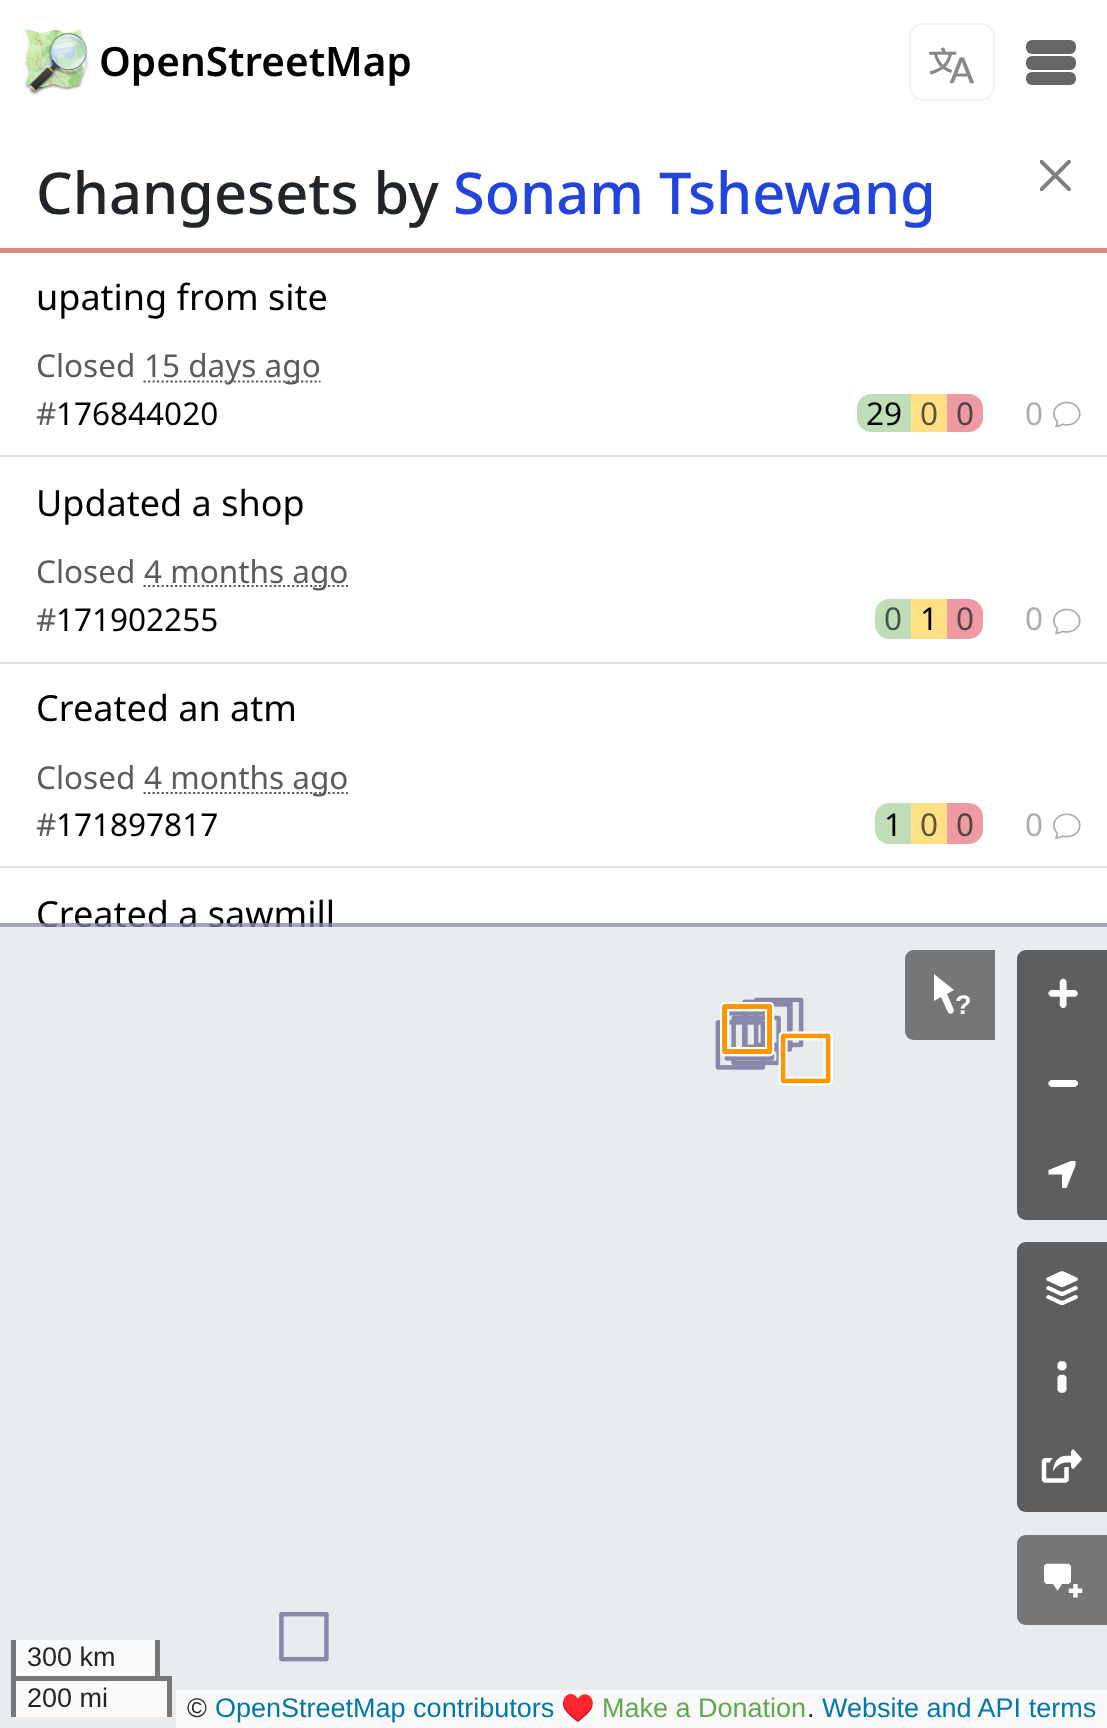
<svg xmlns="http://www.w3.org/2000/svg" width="1107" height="1728">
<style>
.a{font:600 40.5px Noto Sans;fill:#000}
.b{font:500 57.75px Noto Sans;fill:#212529}
.c{font:500 57.75px Noto Sans;fill:#24d}
.d{font:36px Noto Sans;fill:#000}
.e{font:31.5px Noto Sans;fill:#595c5f}
.f{font:31.5px Noto Sans;fill:#000}
.g{font:31.5px Noto Sans;fill:#595440}
.h{font:31.5px Noto Sans;fill:#544247}
.i{font:31.5px Noto Sans;fill:#acadaf}
.j{font:31.5px Noto Sans;fill:#49534d}
.k{font:bold 27px Liberation Sans;fill:#fff}
.l{font:27px Liberation Sans;fill:#212529}
.m{font:27px Liberation Sans;fill:#0078a8}
.n{font:27px Noto Color Emoji;fill:#212529}
.o{font:27px Liberation Sans;fill:#60a94f}
</style>
<defs>
<clipPath id="clip1"><path d="M36 887h1035v40H36z"/></clipPath>
</defs>
<rect width="100%" height="100%" fill="#fff"/>
<image href="1.png" x="24" y="29" width="65" height="66"/>
<rect fill="none" stroke="#f3f3f3" stroke-width="2" x="910" y="24" width="84" height="76" rx="13"/>
<image href="2.png" x="929" y="47" width="45" height="37"/>
<rect fill="#666" x="1026" y="40" width="50" height="14" rx="6"/>
<rect fill="#666" x="1026" y="56" width="50" height="14" rx="6"/>
<rect fill="#666" x="1026" y="72" width="50" height="13" rx="6"/>
<path fill="#d98c80" d="M0 248h1107v5H0z"/>
<path fill="#dee2e6" d="M0 455h1107v2H0z"/>
<path fill="none" stroke="#595c5f" stroke-width="2.2" stroke-dasharray="2.25 2.25" d="M143.5 381.5h177"/>
<path fill="#bfdeb7" d="M871 394h40v38h-40c-7.5 0-14-6.5-14-14v-10c0-7.5 6.5-14 14-14z"/>
<path fill="#ffe083" d="M911 394h36v38H911z"/>
<path fill="#ee9aa2" d="M947 394h22c7.5 0 14 6.5 14 14v10c0 7.5-6.5 14-14 14h-22z"/>
<image href="3.png" x="1053" y="401" width="28" height="27"/>
<path fill="#dee2e6" d="M0 662h1107v2H0z"/>
<path fill="none" stroke="#595c5f" stroke-width="2.2" stroke-dasharray="2.25 2.25" d="M143.5 586h204.5"/>
<path fill="#bfdeb7" d="M889 599h22v40h-22c-7.5 0-14-6.5-14-14v-12c0-7.5 6.5-14 14-14z"/>
<path fill="#ffe083" d="M911 599h36v40H911z"/>
<path fill="#ee9aa2" d="M947 599h22c7.5 0 14 6.5 14 14v12c0 7.5-6.5 14-14 14h-22z"/>
<image href="3.png" x="1053" y="608" width="28" height="27"/>
<path fill="#dee2e6" d="M0 866h1107v2H0z"/>
<path fill="none" stroke="#595c5f" stroke-width="2.2" stroke-dasharray="2.25 2.25" d="M143.5 793h204.5"/>
<path fill="#bfdeb7" d="M889 803h22v41h-22c-7.5 0-14-6.5-14-14v-13c0-7.5 6.5-14 14-14z"/>
<path fill="#ffe083" d="M911 803h36v41H911z"/>
<path fill="#ee9aa2" d="M947 803h22c7.5 0 14 6.5 14 14v13c0 7.5-6.5 14-14 14h-22z"/>
<image href="4.png" x="1053" y="813" width="28" height="27"/>
<image href="5.png" x="1040" y="160" width="31" height="31"/>
<path fill="#e9ecef" d="M0 927h1107v801H0z"/>
<path fill="#fafafb" d="M16 1681h151v36H16z"/>
<path fill="#757678" d="M914 950h81v90h-81c-5 0-9-4-9-9v-72c0-5 4-9 9-9z"/>
<path fill="#fff" d="M934 974l20 16l-7 4l6.5 15c1 1.5 0 3.5-1.5 4.5c-1.5 .5-3.5 0-4.5-2l-6.5-14.5l-7 4z"/>
<path fill="#5d5e60" d="M1026 950h81v90h-90v-81c0-5 4-9 9-9z"/>
<image href="6.png" x="1048" y="978" width="30" height="30"/>
<path fill="#5d5e60" d="M1017 1040h90v90H1017z"/>
<path fill="#fff" d="M1048.5 1082v2.5l2.5 2.5h24.5l2.5-2.5v-2.5l-2.5-2h-24.5z"/>
<path fill="#5d5e60" d="M1017 1130h90v90h-81c-5 0-9-4-9-9z"/>
<path fill="#fff" d="M1062 1174.5v13.5h4.5l9-22.5v-4.5h-4.5l-22.5 9v4.5z"/>
<path fill="#5d5e60" d="M1026 1242h81v90h-90v-81c0-5 4-9 9-9z"/>
<image href="7.png" x="1046" y="1271" width="32" height="34"/>
<path fill="#5d5e60" d="M1017 1332h90v90H1017z"/>
<image href="8.png" x="1057" y="1361" width="10" height="32"/>
<path fill="#5d5e60" d="M1017 1422h90v90h-81c-5 0-9-4-9-9z"/>
<image href="9.png" x="1041" y="1449" width="42" height="34"/>
<path fill="#757678" d="M1026 1535h81v90h-81c-5 0-9-4-9-9v-72c0-5 4-9 9-9z"/>
<image href="10.png" x="1044" y="1563" width="39" height="35"/>
<path fill="#fafafb" d="M16 1640h139v36H16z"/>
<path fill="#777" d="M155 1640h5v41H155z"/>
<path fill="#777" d="M11 1640h5v41H11z"/>
<path fill="#777" d="M11 1676h160v5H11z"/>
<path fill="#777" d="M167 1676h5v41H167z"/>
<path fill="#777" d="M11 1676h5v41H11z"/>
<path fill="#fafafb" d="M176 1690h931v38H176z"/>
<image href="11.png" x="279" y="997" width="554" height="665"/>
<text class="a" x="99" y="76">OpenStreetMap</text>
<text class="b" x="36" y="214">Changesets by</text>
<text class="c" x="453" y="214">Sonam Tshewang</text>
<text class="d" x="36" y="310">upating from site</text>
<text class="e" x="36" y="377">Closed</text>
<text class="e" x="144" y="377">15 days ago</text>
<text class="e" x="36" y="425">#</text>
<text class="f" x="56" y="425">176844020</text>
<text class="f" x="866" y="425">29</text>
<text class="g" x="920" y="425">0</text>
<text class="h" x="956" y="425">0</text>
<text class="i" x="1025" y="425">0</text>
<text class="d" x="36" y="516">Updated a shop</text>
<text class="e" x="36" y="583">Closed</text>
<text class="e" x="144" y="583">4 months ago</text>
<text class="e" x="36" y="631">#</text>
<text class="f" x="56" y="631">171902255</text>
<text class="j" x="884" y="630">0</text>
<text class="f" x="920" y="630">1</text>
<text class="h" x="956" y="630">0</text>
<text class="i" x="1025" y="630">0</text>
<text class="d" x="36" y="721">Created an atm</text>
<text class="e" x="36" y="789">Closed</text>
<text class="e" x="144" y="789">4 months ago</text>
<text class="e" x="36" y="836">#</text>
<text class="f" x="56" y="836">171897817</text>
<text class="f" x="884" y="836">1</text>
<text class="g" x="920" y="836">0</text>
<text class="h" x="956" y="836">0</text>
<text class="i" x="1025" y="836">0</text>
<g clip-path="url(#clip1)">
<text class="d" x="36" y="927">Created a sawmill</text>
</g>
<path fill="#8888aabf" d="M0 923h1107v4H0z"/>
<text class="k" x="955" y="1014">?</text>
<text class="l" x="27" y="1666">300 km</text>
<text class="l" x="27" y="1707">200 mi</text>
<text class="l" x="187" y="1717">©</text>
<text class="m" x="215" y="1717">OpenStreetMap contributors</text>
<text class="n" x="561" y="1717">♥️</text>
<text class="o" x="602" y="1717">Make a Donation</text>
<text class="l" x="807" y="1717">.</text>
<text class="m" x="822" y="1717">Website and API terms</text>
</svg>
